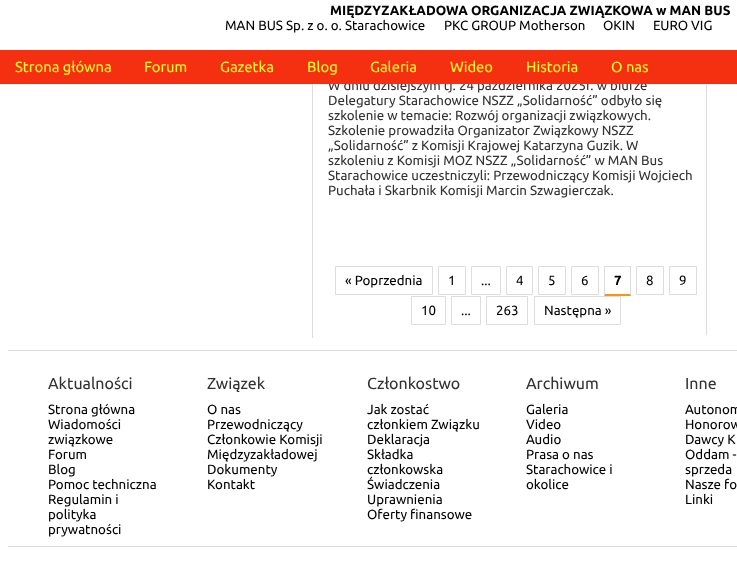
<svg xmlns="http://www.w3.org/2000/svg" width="737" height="583">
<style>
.a{font:bold 13.3px Ubuntu;fill:#000}
.b{font:13.3px Ubuntu;fill:#000}
.c{font:13.3px Ubuntu;fill:#333}
.d{font:14.75px Ubuntu;fill:#fcfe2f}
.e{font:16px Ubuntu;fill:#333}
</style>
<rect width="100%" height="100%" fill="#fff"/>
<path fill="#ddd" d="M312 84h1v254H312z"/>
<path fill="none" stroke="#ddd" d="M335.5 266.5h97v28H335.5z"/>
<path fill="none" stroke="#ddd" d="M438.5 266.5h27v28H438.5z"/>
<path fill="none" stroke="#ddd" d="M471.5 266.5h29v28H471.5z"/>
<path fill="none" stroke="#ddd" d="M506.5 266.5h26v28H506.5z"/>
<path fill="none" stroke="#ddd" d="M538.5 266.5h27v28H538.5z"/>
<path fill="none" stroke="#ddd" d="M571.5 266.5h27v28H571.5z"/>
<path fill="#ddd" d="M604 266h27v1H604z"/>
<path fill="#ddd" d="M631 266v30l-1-2v-27z"/>
<path fill="#f59714" d="M631 296h-27l1-2h25z"/>
<path fill="#ddd" d="M604 296v-30l1 1v27z"/>
<path fill="none" stroke="#ddd" d="M636.5 266.5h27v28H636.5z"/>
<path fill="none" stroke="#ddd" d="M669.5 266.5h27v28H669.5z"/>
<path fill="none" stroke="#ddd" d="M411.5 296.5h34v28H411.5z"/>
<path fill="none" stroke="#ddd" d="M451.5 296.5h29v28H451.5z"/>
<path fill="none" stroke="#ddd" d="M486.5 296.5h41v28H486.5z"/>
<path fill="none" stroke="#ddd" d="M534.5 296.5h86v28H534.5z"/>
<path fill="#ddd" d="M706 84h1v251H706z"/>
<path fill="#ddd" d="M8 350h729v1H8z"/>
<path fill="#ddd" d="M8 546h729v1H8z"/>
<text class="a" x="330" y="15">MIĘDZYZAKŁADOWA ORGANIZACJA ZWIĄZKOWA w MAN BUS</text>
<text class="b" x="225" y="30">MAN BUS Sp. z o. o. Starachowice</text>
<text class="b" x="444" y="30">PKC GROUP Motherson</text>
<text class="b" x="603" y="30">OKIN</text>
<text class="b" x="653" y="30">EURO VIG</text>
<text class="c" x="328" y="90">W dniu dzisiejszym tj. 24 października 2025r. w biurze</text>
<path fill="#f43010" d="M0 50h737v34H0z"/>
<text class="d" x="611" y="72">O nas</text>
<text class="d" x="526" y="72">Historia</text>
<text class="d" x="450" y="72">Wideo</text>
<text class="d" x="370" y="72">Galeria</text>
<text class="d" x="307" y="72">Blog</text>
<text class="d" x="220" y="72">Gazetka</text>
<text class="d" x="144" y="72">Forum</text>
<text class="d" x="15" y="72">Strona główna</text>
<text class="c" x="328" y="105">Delegatury Starachowice NSZZ „Solidarność” odbyło się</text>
<text class="c" x="328" y="120">szkolenie w temacie: Rozwój organizacji związkowych.</text>
<text class="c" x="328" y="135">Szkolenie prowadziła Organizator Związkowy NSZZ</text>
<text class="c" x="328" y="150">„Solidarność” z Komisji Krajowej Katarzyna Guzik. W</text>
<text class="c" x="328" y="165">szkoleniu z Komisji MOZ NSZZ „Solidarność” w MAN Bus</text>
<text class="c" x="328" y="180">Starachowice uczestniczyli: Przewodniczący Komisji Wojciech</text>
<text class="c" x="328" y="195">Puchała i Skarbnik Komisji Marcin Szwagierczak.</text>
<text class="b" x="345" y="285">« Poprzednia</text>
<text class="b" x="448" y="285">1</text>
<text class="b" x="481" y="285">...</text>
<text class="b" x="516" y="285">4</text>
<text class="b" x="548" y="285">5</text>
<text class="b" x="581" y="285">6</text>
<text class="a" x="614" y="285">7</text>
<text class="b" x="646" y="285">8</text>
<text class="b" x="679" y="285">9</text>
<text class="b" x="421" y="315">10</text>
<text class="b" x="461" y="315">...</text>
<text class="b" x="496" y="315">263</text>
<text class="b" x="544" y="315">Następna »</text>
<text class="e" x="48" y="389">Aktualności</text>
<text class="b" x="48" y="414">Strona główna</text>
<text class="b" x="48" y="429">Wiadomości</text>
<text class="b" x="48" y="444">związkowe</text>
<text class="b" x="48" y="459">Forum</text>
<text class="b" x="48" y="474">Blog</text>
<text class="b" x="48" y="489">Pomoc techniczna</text>
<text class="b" x="48" y="504">Regulamin i</text>
<text class="b" x="48" y="519">polityka</text>
<text class="b" x="48" y="534">prywatności</text>
<text class="e" x="207" y="389">Związek</text>
<text class="b" x="207" y="414">O nas</text>
<text class="b" x="207" y="429">Przewodniczący</text>
<text class="b" x="207" y="444">Członkowie Komisji</text>
<text class="b" x="207" y="459">Międzyzakładowej</text>
<text class="b" x="207" y="474">Dokumenty</text>
<text class="b" x="207" y="489">Kontakt</text>
<text class="e" x="367" y="389">Członkostwo</text>
<text class="b" x="367" y="414">Jak zostać</text>
<text class="b" x="367" y="429">członkiem Związku</text>
<text class="b" x="367" y="444">Deklaracja</text>
<text class="b" x="367" y="459">Składka</text>
<text class="b" x="367" y="474">członkowska</text>
<text class="b" x="367" y="489">Świadczenia</text>
<text class="b" x="367" y="504">Uprawnienia</text>
<text class="b" x="367" y="519">Oferty finansowe</text>
<text class="e" x="526" y="389">Archiwum</text>
<text class="b" x="526" y="414">Galeria</text>
<text class="b" x="526" y="429">Video</text>
<text class="b" x="526" y="444">Audio</text>
<text class="b" x="526" y="459">Prasa o nas</text>
<text class="b" x="526" y="474">Starachowice i</text>
<text class="b" x="526" y="489">okolice</text>
<text class="e" x="685" y="389">Inne</text>
<text class="b" x="685" y="414">Autonom</text>
<text class="b" x="685" y="429">Honorow</text>
<text class="b" x="685" y="444">Dawcy K</text>
<text class="b" x="685" y="459">Oddam -</text>
<text class="b" x="685" y="474">sprzeda</text>
<text class="b" x="685" y="489">Nasze fo</text>
<text class="b" x="685" y="504">Linki</text>
</svg>
